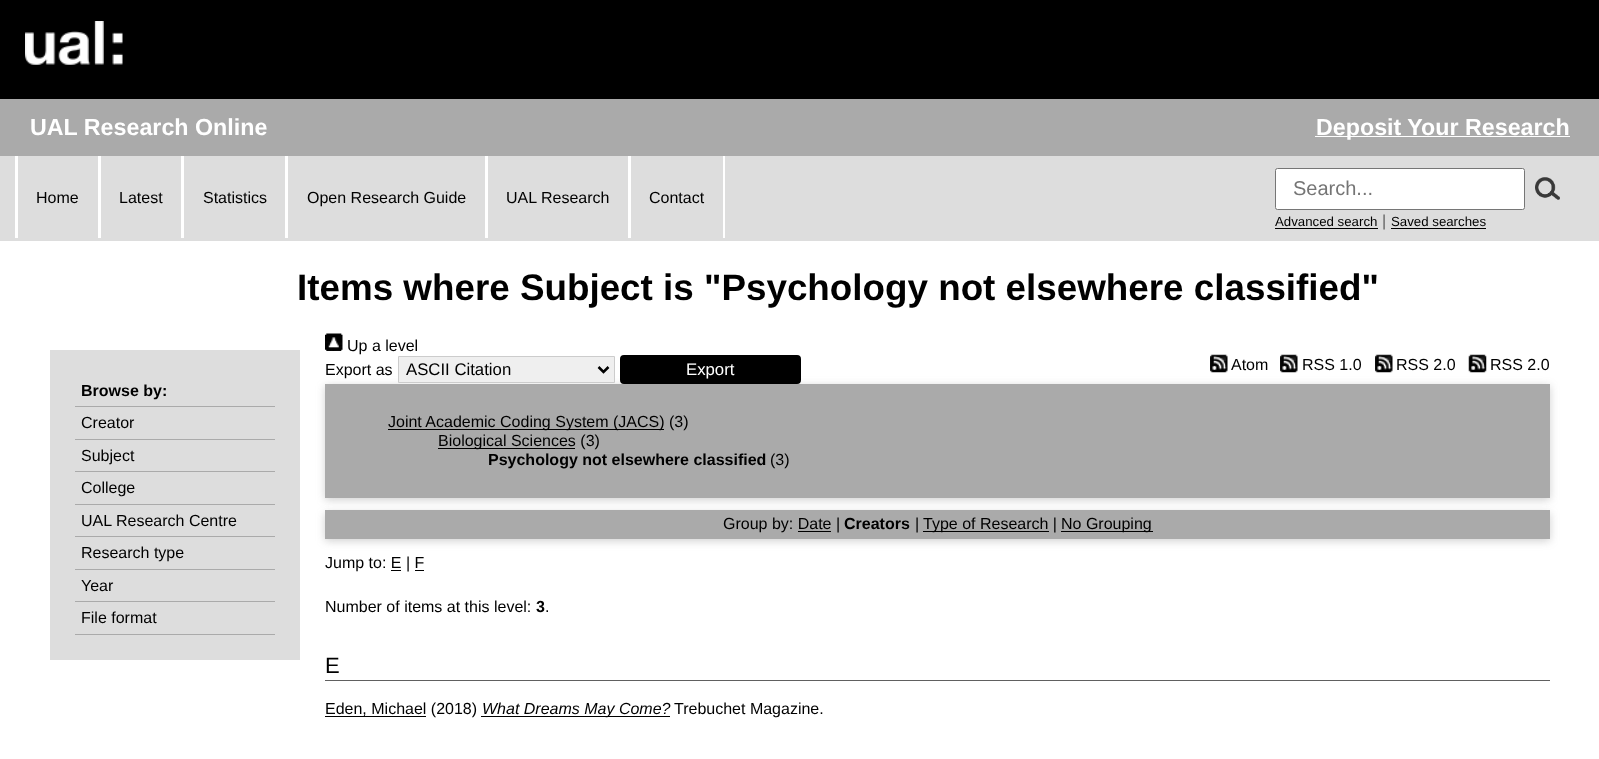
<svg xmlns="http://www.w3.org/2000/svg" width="1599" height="759">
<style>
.a{font:bold 23.25px Liberation Sans;fill:#fff}
.b{font:16px Liberation Sans;fill:#000}
.c{font:20px Liberation Sans;fill:#757575}
.d{font:13.25px Liberation Sans;fill:#000}
.e{font:16px Liberation Sans;fill:#606060}
.f{font:bold 36.8px Liberation Sans;fill:#000}
.g{font:bold 16px Liberation Sans;fill:#000}
.h{font:16.75px Liberation Sans;fill:#000}
.i{font:16.75px Liberation Sans;fill:#fff}
.j{font:22px Liberation Sans;fill:#000}
.k{font:italic 16px Liberation Sans;fill:#000}
</style>
<rect width="100%" height="100%" fill="#fff"/>
<path fill="#000" d="M0 0h1599v99H0z"/>
<image href="1.png" x="25" y="21" width="98" height="44"/>
<path fill="#aaa" d="M0 99h1599v57H0z"/>
<path fill="#fff" d="M1315 136h255v1H1315z"/>
<path fill="#ddd" d="M0 156h1599v85H0z"/>
<path fill="#fff" d="M15 156h3v82H15z"/>
<path fill="#fff" d="M98 156h3v82H98z"/>
<path fill="#fff" d="M181 156h3v82H181z"/>
<path fill="#fff" d="M285 156h3v82H285z"/>
<path fill="#fff" d="M485 156h3v82H485z"/>
<path fill="#fff" d="M723 156h2v82H723z"/>
<path fill="#fff" d="M628 156h3v82H628z"/>
<rect fill="#fff" stroke="#767676" x="1275.5" y="168.5" width="249" height="41" rx="2"/>
<image href="2.png" x="1535" y="177" width="25" height="23"/>
<path fill="#000" d="M1275 228h103v1H1275z"/>
<path fill="#000" d="M1391 228h95v1H1391z"/>
<path fill="#ddd" d="M50 350h250v310H50z"/>
<path fill="#aaa" d="M75 406h200v1H75z"/>
<path fill="#aaa" d="M75 439h200v1H75z"/>
<path fill="#aaa" d="M75 471h200v1H75z"/>
<path fill="#aaa" d="M75 504h200v1H75z"/>
<path fill="#aaa" d="M75 536h200v1H75z"/>
<path fill="#aaa" d="M75 569h200v1H75z"/>
<path fill="#aaa" d="M75 601h200v1H75z"/>
<path fill="#aaa" d="M75 634h200v1H75z"/>
<image href="3.png" x="325" y="333" width="18" height="18"/>
<path fill="#6464644d" filter="blur(4px)" d="M325 386h1225v114H325z"/>
<path fill="#efefef" stroke="#ccc" d="M398.5 356.5h216v26H398.5z"/>
<path fill="none" stroke="#000" stroke-width="2.5" d="M598.5 367l5 5l5-5"/>
<rect fill="#000" stroke="#000" stroke-width="3" x="621.5" y="356.5" width="178" height="26" rx="2.5"/>
<image href="4.png" x="1210" y="354" width="18" height="19"/>
<image href="4.png" x="1280" y="354" width="18" height="19"/>
<image href="4.png" x="1375" y="354" width="18" height="19"/>
<image href="5.png" x="1468" y="354" width="19" height="19"/>
<path fill="#aaa" d="M325 384h1225v114H325z"/>
<path fill="#000" d="M388 429h276v1H388z"/>
<path fill="#000" d="M438 448h137v1H438z"/>
<path fill="#6464644d" filter="blur(4px)" d="M325 513h1225v28H325z"/>
<path fill="#aaa" d="M325 510h1225v29H325z"/>
<path fill="#000" d="M923 531h126v1H923z"/>
<path fill="#000" d="M1061 531h92v1H1061z"/>
<path fill="#000" d="M798 531h33v1H798z"/>
<path fill="#000" d="M391 570h10v1H391z"/>
<path fill="#000" d="M415 570h9v1H415z"/>
<path fill="#606060" d="M325 680h1225v1H325z"/>
<path fill="#000" d="M325 716h101v1H325z"/>
<path fill="#000" d="M481 716h189v1H481z"/>
<text class="a" x="30" y="135">UAL Research Online</text>
<text class="a" x="1316" y="135">Deposit Your Research</text>
<text class="b" x="36" y="203">Home</text>
<text class="b" x="119" y="203">Latest</text>
<text class="b" x="203" y="203">Statistics</text>
<text class="b" x="307" y="203">Open Research Guide</text>
<text class="b" x="506" y="203">UAL Research</text>
<text class="b" x="649" y="203">Contact</text>
<text class="c" x="1293" y="195">Search...</text>
<text class="d" x="1275" y="226">Advanced search</text>
<text class="e" x="1382" y="226">|</text>
<text class="d" x="1391" y="226">Saved searches</text>
<text class="f" x="297" y="300">Items where Subject is "Psychology not elsewhere classified"</text>
<text class="g" x="81" y="396">Browse by:</text>
<text class="b" x="81" y="428">Creator</text>
<text class="b" x="81" y="461">Subject</text>
<text class="b" x="81" y="493">College</text>
<text class="b" x="81" y="526">UAL Research Centre</text>
<text class="b" x="81" y="558">Research type</text>
<text class="b" x="81" y="591">Year</text>
<text class="b" x="81" y="623">File format</text>
<text class="b" x="347" y="351">Up a level</text>
<text class="b" x="325" y="375">Export as</text>
<text class="h" x="406" y="375">ASCII Citation</text>
<text class="i" x="686" y="375">Export</text>
<text class="b" x="1231" y="370">Atom</text>
<text class="b" x="1302" y="370">RSS 1.0</text>
<text class="b" x="1396" y="370">RSS 2.0</text>
<text class="b" x="1490" y="370">RSS 2.0</text>
<text class="b" x="388" y="427">Joint Academic Coding System (JACS) (3)</text>
<text class="b" x="438" y="446">Biological Sciences (3)</text>
<text class="g" x="488" y="465">Psychology not elsewhere classified</text>
<text class="b" x="770" y="465">(3)</text>
<text class="b" x="723" y="529">Group by: Date |</text>
<text class="g" x="844" y="529">Creators</text>
<text class="b" x="915" y="529">|</text>
<text class="b" x="923" y="529">Type of Research |</text>
<text class="b" x="1061" y="529">No Grouping</text>
<text class="b" x="325" y="568">Jump to: E | F</text>
<text class="b" x="325" y="612">Number of items at this level:</text>
<text class="g" x="536" y="612">3</text>
<text class="b" x="545" y="612">.</text>
<text class="j" x="325" y="673">E</text>
<text class="b" x="325" y="714">Eden, Michael (2018)</text>
<text class="k" x="482" y="714">What Dreams May Come?</text>
<text class="b" x="674" y="714">Trebuchet Magazine.</text>
</svg>
